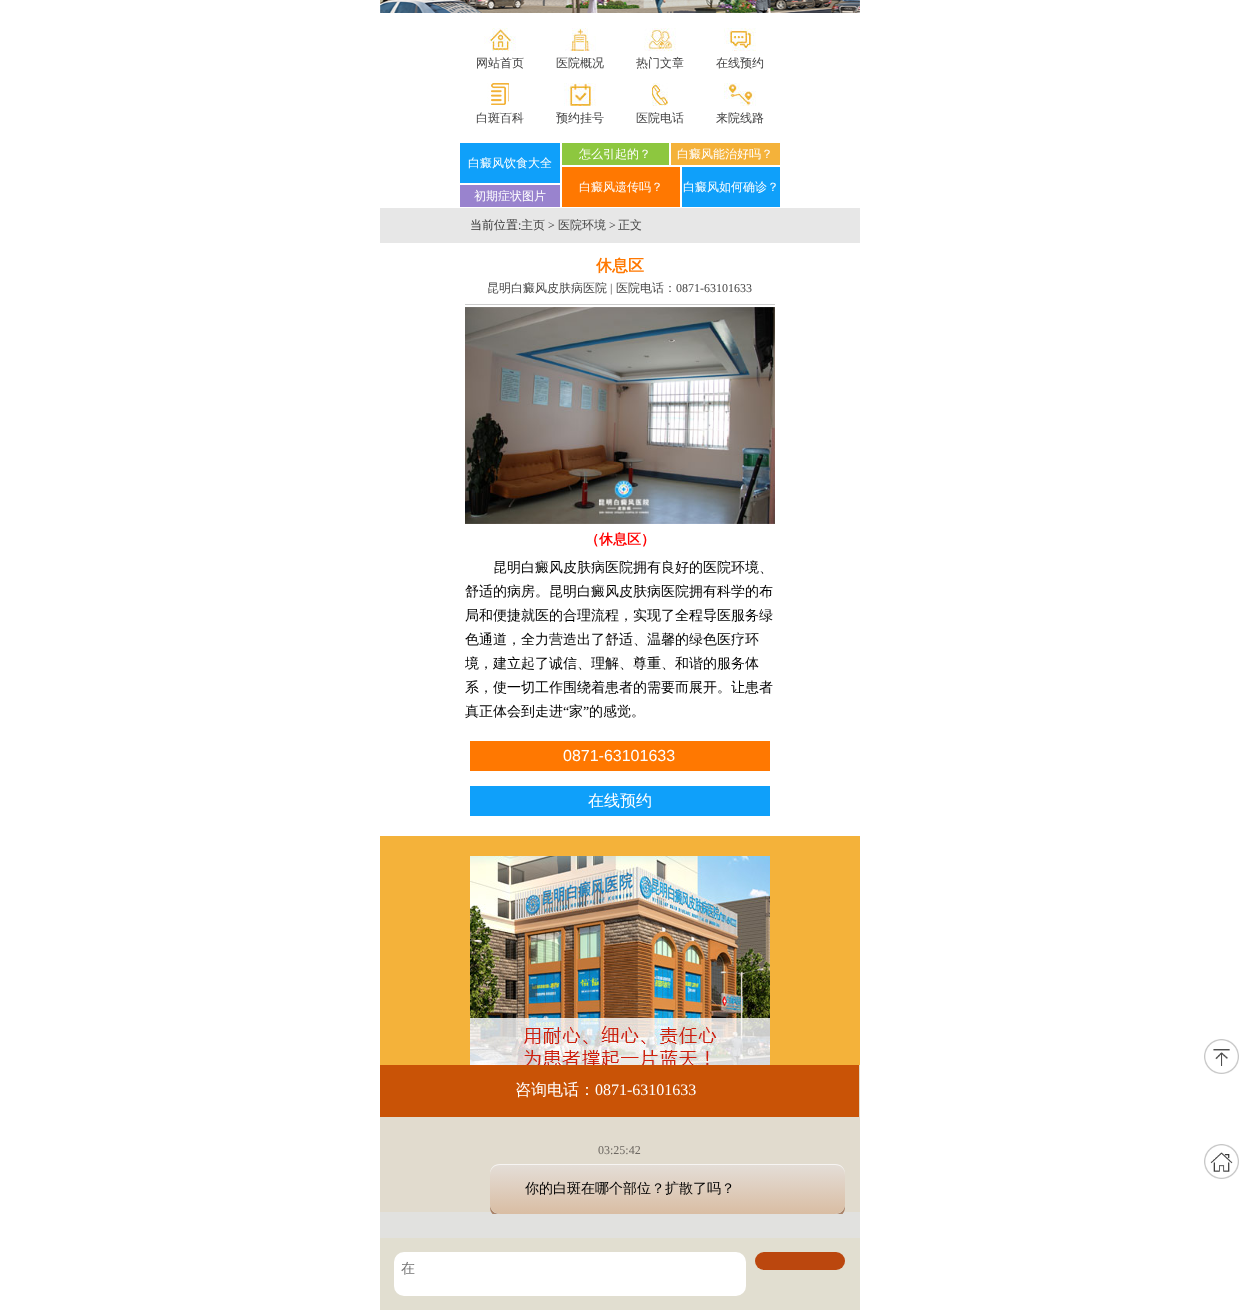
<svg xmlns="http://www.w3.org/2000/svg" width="1239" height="1310">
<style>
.a{font:500 12px WenQuanYi Zen Hei;fill:#404041}
.b{font:500 12px WenQuanYi Zen Hei;fill:#fff}
.c{font:500 12px WenQuanYi Zen Hei;fill:#333}
.d{font:12px Liberation Serif;fill:#333}
.e{font:500 12px WenQuanYi Zen Hei;fill:#464646}
.f{font:bold 16px WenQuanYi Zen Hei;fill:#ff7801}
.g{font:12px Liberation Serif;fill:#464646}
.h{font:bold 14px WenQuanYi Zen Hei;fill:#f00}
.i{font:500 14px WenQuanYi Zen Hei;fill:#000}
.j{font:14px Liberation Serif;fill:#000}
.k{font:16px Liberation Sans;fill:#fff}
.l{font:500 16px WenQuanYi Zen Hei;fill:#fff}
.m{font:16px Liberation Serif;fill:#fff}
.n{font:12px Liberation Serif;fill:#6c6761}
.o{font:500 14px WenQuanYi Zen Hei;fill:#757575}
</style>
<defs>
<clipPath id="clip1"><path d="M394 1141h451v73H394z"/></clipPath>
<linearGradient id="g1" gradientUnits="userSpaceOnUse" x1="668" y1="1164" x2="668" y2="1214"><stop offset="0" stop-color="#e4ded8"/><stop offset="1" stop-color="#d9bda3"/></linearGradient>
<clipPath id="clip2"><path d="M465 554h310v172H465z"/></clipPath>
</defs>
<rect width="100%" height="100%" fill="#fff"/>
<image href="1.png" x="380" y="0" width="480" height="13"/>
<image href="2.png" x="484" y="28" width="32" height="23"/>
<image href="3.png" x="565" y="28" width="31" height="23"/>
<image href="4.png" x="644" y="28" width="32" height="23"/>
<image href="5.png" x="724" y="28" width="32" height="23"/>
<image href="6.png" x="487" y="83" width="22" height="22"/>
<image href="7.png" x="564" y="83" width="32" height="23"/>
<image href="8.png" x="652" y="83" width="16" height="23"/>
<image href="9.png" x="724" y="83" width="32" height="23"/>
<path fill="#0fa0fa" d="M460 143h100v40H460z"/>
<path fill="#9983ce" d="M460 185h100v22H460z"/>
<path fill="#8dc73f" d="M562 143h107v22H562z"/>
<path fill="#f4b23a" d="M671 143h109v22H671z"/>
<path fill="#ff7801" d="M562 167h118v40H562z"/>
<path fill="#0fa0fa" d="M682 167h98v40H682z"/>
<path fill="#e7e7e7" d="M380 208h480v35H380z"/>
<path fill="#ccc" d="M465 304h310v1H465z"/>
<image href="10.png" x="465" y="307" width="310" height="217"/>
<path fill="#ff7801" d="M470 741h300v30H470z"/>
<path fill="#0fa0fa" d="M470 786h300v30H470z"/>
<path fill="#f4b23a" d="M380 836h480v376H380z"/>
<image href="11.png" x="470" y="856" width="300" height="209"/>
<image href="12.png" x="1204" y="1039" width="35" height="35"/>
<path fill="#f4f0d9" d="M380 1212h480v26H380z"/>
<path fill="#dfdfdfe6" d="M380 1065h480v173H380z"/>
<path fill="#c95306" d="M380 1065h479v52H380z"/>
<g clip-path="url(#clip1)">
<path fill="#a98268" d="M490 1204v3c0 6 4 10 10 10h335c6 0 10-4 10-10v-3c0 6-4 10-10 10h-335c-6 0-10-4-10-10z"/>
</g>
<rect fill="url(#g1)" x="490" y="1164" width="355" height="50" rx="10"/>
<path fill="#f7f5f3" d="M500 1165h335c6 0 10 4 10 10v-1c0-6-4-10-10-10h-335c-6 0-10 4-10 10v1c0-6 4-10 10-10z"/>
<path fill="#e1ded0" d="M380 1238h480v72H380z"/>
<rect fill="#fff" x="394" y="1252" width="352" height="44" rx="10"/>
<rect fill="#bb470e" x="755" y="1252" width="90" height="18" rx="9"/>
<image href="13.png" x="1204" y="1144" width="35" height="35"/>
<text class="a" x="476" y="67">网站首页</text>
<text class="a" x="556" y="67">医院概况</text>
<text class="a" x="636" y="67">热门文章</text>
<text class="a" x="716" y="67">在线预约</text>
<text class="a" x="476" y="122">白斑百科</text>
<text class="a" x="556" y="122">预约挂号</text>
<text class="a" x="636" y="122">医院电话</text>
<text class="a" x="716" y="122">来院线路</text>
<text class="b" x="468" y="167">白癜风饮食大全</text>
<text class="b" x="474" y="200">初期症状图片</text>
<text class="b" x="579" y="158">怎么引起的？</text>
<text class="b" x="677" y="158">白癜风能治好吗？</text>
<text class="b" x="579" y="191">白癜风遗传吗？</text>
<text class="b" x="683" y="191">白癜风如何确诊？</text>
<text class="c" x="470" y="229">当前位置</text>
<text class="d" x="518" y="229">:</text>
<text class="e" x="521" y="229">主页</text>
<text class="d" x="548" y="229">&gt;</text>
<text class="e" x="558" y="229">医院环境</text>
<text class="d" x="609" y="229">&gt;</text>
<text class="e" x="618" y="229">正文</text>
<text class="f" x="596" y="271">休息区</text>
<text class="e" x="487" y="292">昆明白癜风皮肤病医院</text>
<text class="g" x="610" y="292">|</text>
<text class="e" x="616" y="292">医院电话：</text>
<text class="g" x="676" y="292">0871-63101633</text>
<text class="h" x="585" y="544">（休息区）</text>
<text class="i" x="493" y="572">昆明白癜风皮肤病医院拥有良好的医院环境、</text>
<text class="i" x="465" y="596">舒适的病房。昆明白癜风皮肤病医院拥有科学的布</text>
<text class="i" x="465" y="620">局和便捷就医的合理流程，实现了全程导医服务绿</text>
<text class="i" x="465" y="644">色通道，全力营造出了舒适、温馨的绿色医疗环</text>
<g clip-path="url(#clip2)">
<text class="i" x="465" y="668">境，建立起了诚信、理解、尊重、和谐的服务体</text>
</g>
<text class="i" x="465" y="692">系，使一切工作围绕着患者的需要而展开。让患者</text>
<text class="i" x="465" y="716">真正体会到走进</text>
<text class="j" x="563" y="716">“</text>
<text class="i" x="569" y="716">家</text>
<text class="j" x="583" y="716">”</text>
<text class="i" x="589" y="716">的感觉。</text>
<text class="k" x="563" y="761">0871-63101633</text>
<text class="l" x="588" y="806">在线预约</text>
<text class="l" x="515" y="1095">咨询电话：</text>
<text class="m" x="595" y="1095">0871-63101633</text>
<text class="n" x="598" y="1154">03:25:42</text>
<text class="i" x="525" y="1193">你的白斑在哪个部位？扩散了吗？</text>
<text class="o" x="401" y="1273">在</text>
</svg>
